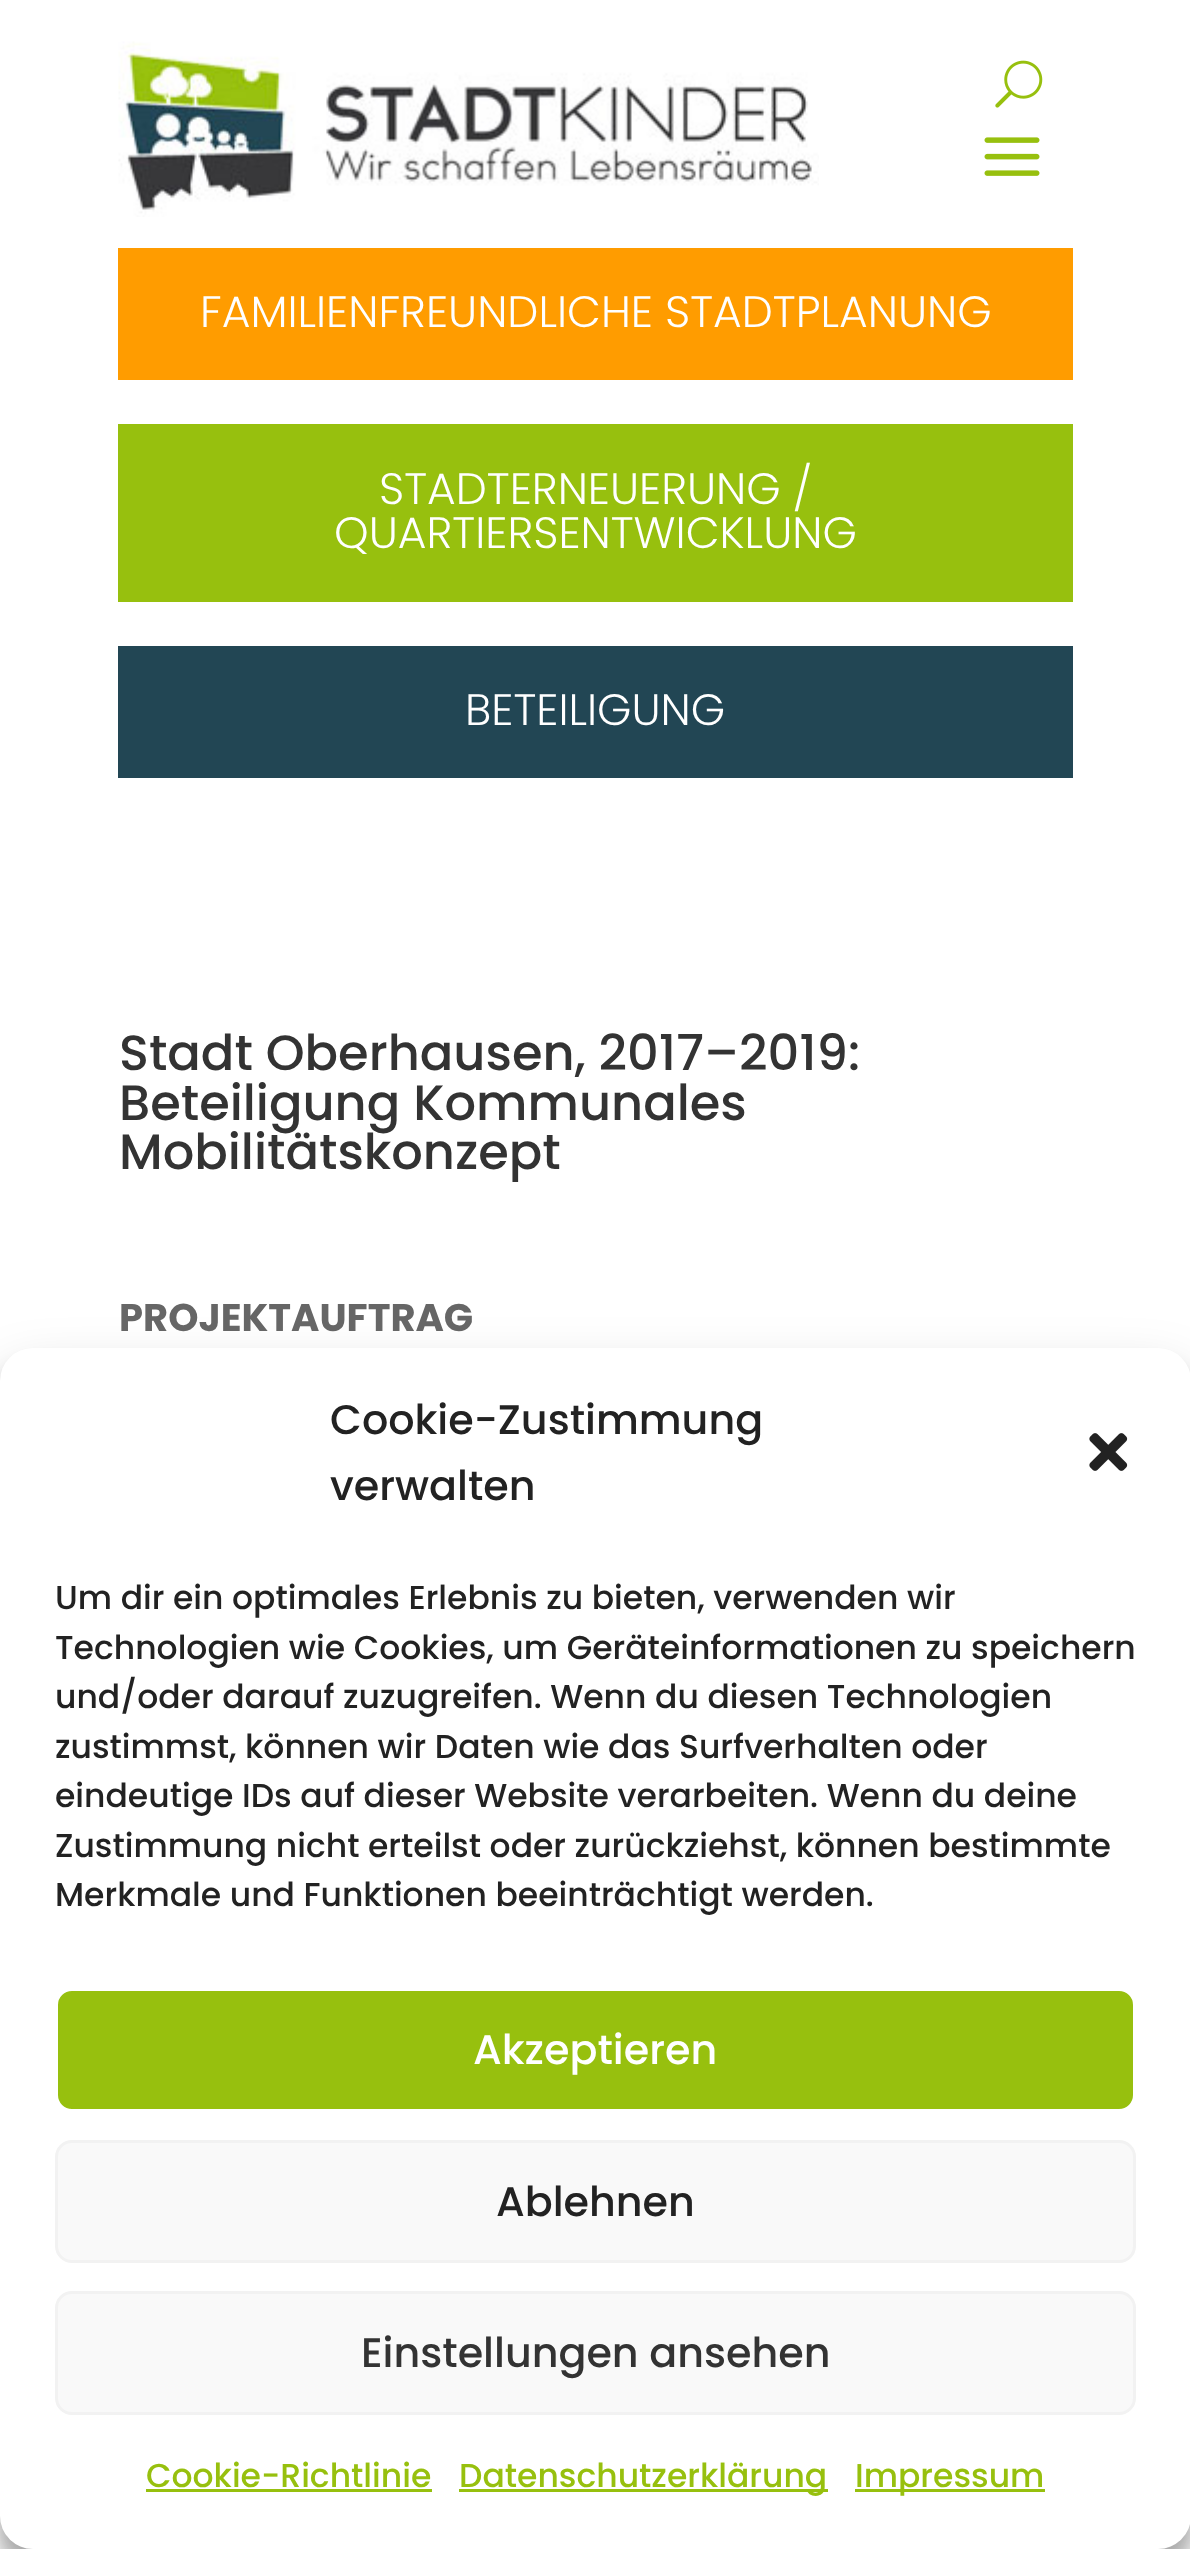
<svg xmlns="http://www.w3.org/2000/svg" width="1190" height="2549">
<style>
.a{font:300 44px Poppins;fill:#fff}
.b{font:500 49.5px Poppins;fill:#333}
.c{font:bold 38.5px Poppins;fill:#666}
.d{font:500 41.25px Poppins;fill:#222}
.e{font:500 33px Poppins;fill:#222}
.f{font:500 41.25px Poppins;fill:#fff}
.g{font:500 41.25px Poppins;fill:#333}
.h{font:500 33px Poppins;fill:#97c00e}
</style>
<rect width="100%" height="100%" fill="#fff"/>
<image href="1.png" x="118" y="41" width="701" height="176"/>
<image href="2.png" x="995" y="60" width="48" height="48"/>
<image href="3.png" x="984" y="137" width="56" height="39"/>
<path fill="#ff9c00" d="M118 248h955v132H118z"/>
<path fill="#97c00e" d="M118 424h955v178H118z"/>
<path fill="#224654" d="M118 646h955v132H118z"/>
<rect fill="#0000003b" filter="blur(8px)" y="1364" width="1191" height="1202" rx="33"/>
<rect fill="#00000030" filter="blur(27.5px)" y="1375" width="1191" height="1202" rx="33"/>
<rect fill="#fff" y="1348" width="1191" height="1201" rx="33"/>
<image href="4.png" x="1089" y="1433" width="39" height="38"/>
<rect fill="#97c00e" stroke="#fff" stroke-width="3" x="56.5" y="1989.5" width="1078" height="121" rx="15.5"/>
<rect fill="#f9f9f9" stroke="#f2f2f2" stroke-width="3" x="56.5" y="2141.5" width="1078" height="120" rx="15.5"/>
<rect fill="#f9f9f9" stroke="#f2f2f2" stroke-width="3" x="56.5" y="2292.5" width="1078" height="121" rx="15.5"/>
<path fill="#97c00e" d="M146 2489h286v3H146z"/>
<path fill="#97c00e" d="M459 2489h369v3H459z"/>
<path fill="#97c00e" d="M855 2489h190v3H855z"/>
<text class="a" x="200" y="327">FAMILIENFREUNDLICHE STADTPLANUNG</text>
<text class="a" x="379" y="504">STADTERNEUERUNG /</text>
<text class="a" x="334" y="548">QUARTIERSENTWICKLUNG</text>
<text class="a" x="465" y="725">BETEILIGUNG</text>
<text class="b" x="119" y="1070">Stadt Oberhausen, 2017–2019:</text>
<text class="b" x="119" y="1120">Beteiligung Kommunales</text>
<text class="b" x="119" y="1169">Mobilitätskonzept</text>
<text class="c" x="119" y="1331">PROJEKTAUFTRAG</text>
<text class="d" x="330" y="1434">Cookie-Zustimmung</text>
<text class="d" x="330" y="1500">verwalten</text>
<text class="e" x="55" y="1609">Um dir ein optimales Erlebnis zu bieten, verwenden wir</text>
<text class="e" x="55" y="1659">Technologien wie Cookies, um Geräteinformationen zu speichern</text>
<text class="e" x="55" y="1708">und/oder darauf zuzugreifen. Wenn du diesen Technologien</text>
<text class="e" x="55" y="1758">zustimmst, können wir Daten wie das Surfverhalten oder</text>
<text class="e" x="55" y="1807">eindeutige IDs auf dieser Website verarbeiten. Wenn du deine</text>
<text class="e" x="55" y="1857">Zustimmung nicht erteilst oder zurückziehst, können bestimmte</text>
<text class="e" x="55" y="1906">Merkmale und Funktionen beeinträchtigt werden.</text>
<text class="f" x="473" y="2064">Akzeptieren</text>
<text class="d" x="496" y="2216">Ablehnen</text>
<text class="g" x="361" y="2367">Einstellungen ansehen</text>
<text class="h" x="146" y="2487">Cookie-Richtlinie</text>
<text class="h" x="459" y="2487">Datenschutzerklärung</text>
<text class="h" x="855" y="2487">Impressum</text>
</svg>
